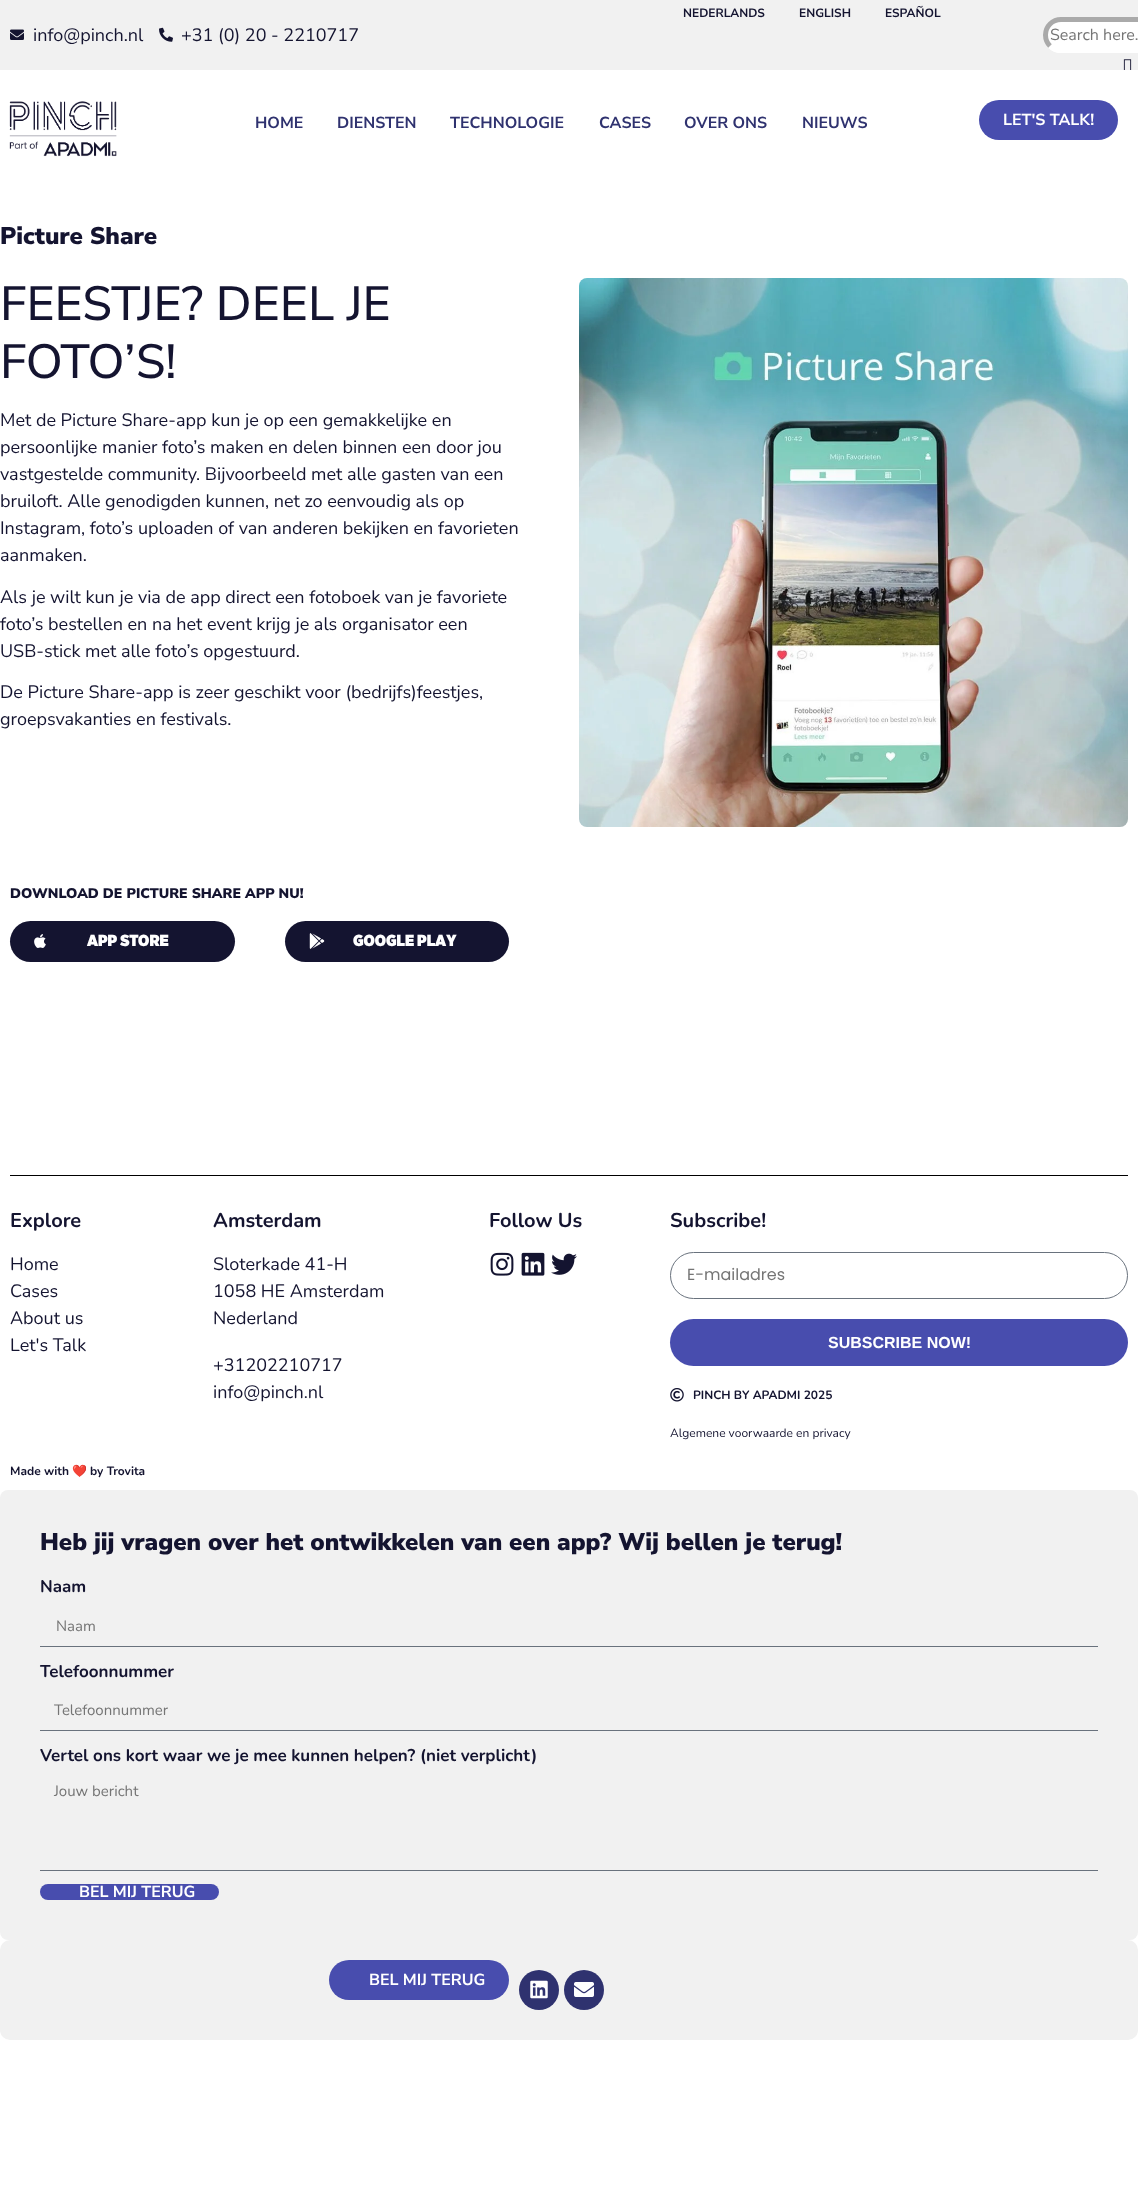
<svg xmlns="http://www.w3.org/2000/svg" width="1138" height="2206">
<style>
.a{font:18px Nunito Sans;fill:#141430}
.b{font:bold 12px Nunito Sans;fill:#141430}
.c{font:16px Nunito Sans;fill:#757575}
.d{font:bold 16px Nunito Sans;fill:#2f326f}
.e{font:bold 16px Nunito Sans;fill:#fff}
.f{font:900 24px Nunito Sans;fill:#141430}
.g{font:500 48px Nunito Sans;fill:#141430}
.h{font:900 14px Nunito Sans;fill:#141430}
.i{font:500 16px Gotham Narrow;fill:#fff}
.j{font:bold 20px Nunito;fill:#141430}
.k{font:18px Nunito;fill:#141430}
.l{font:16px Poppins;fill:#757575}
.m{font:bold 16px Liberation Sans;fill:#fff}
.n{font:bold 12px Nunito;fill:#141430}
.o{font:12px Nunito;fill:#141430}
.p{font:bold 12px Noto Color Emoji;fill:#141430}
.q{font:bold 17px Nunito;fill:#141430}
.r{font:15px Nunito;fill:#757575}
</style>
<rect width="100%" height="100%" fill="#fff"/>
<path fill="#f1f1f1" d="M0 0h1138v70H0z"/>
<image href="1.png" x="10" y="29" width="14" height="11"/>
<image href="2.png" x="159" y="27" width="14" height="15"/>
<rect fill="#fff" x="1043" y="17" width="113" height="36" rx="18"/>
<path fill="none" stroke="#fff" stroke-width="5" d="M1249 24c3 3 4.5 7 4.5 11c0 4-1.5 8-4.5 11c-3 3-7 4.5-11 4.5h-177c-4 0-8-1.5-11-4.5"/>
<path fill="none" stroke="#aaa" stroke-width="5" d="M1050 46c-3-3-4.5-7-4.5-11c0-4 1.5-8 4.5-11c3-3 7-4.5 11-4.5h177c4 0 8 1.5 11 4.5"/>
<image href="3.png" x="1123" y="59" width="9" height="11"/>
<image href="4.png" x="9" y="101" width="108" height="56"/>
<rect fill="#484dae" x="979" y="100" width="139" height="40" rx="20"/>
<image href="5.png" x="579" y="278" width="549" height="549"/>
<rect fill="#141430" x="10" y="921" width="225" height="41" rx="20.5"/>
<image href="6.png" x="34" y="934" width="12" height="14"/>
<rect fill="#141430" x="285" y="921" width="224" height="41" rx="20.5"/>
<image href="7.png" x="309" y="933" width="16" height="16"/>
<path fill="#000" d="M10 1175h1118v1H10z"/>
<image href="8.png" x="490" y="1252" width="24" height="24"/>
<image href="9.png" x="521" y="1252" width="24" height="24"/>
<image href="10.png" x="551" y="1253" width="26" height="22"/>
<rect fill="none" stroke="#69727d" x="670.5" y="1252.5" width="457" height="46" rx="23"/>
<rect fill="#484dae" x="670" y="1319" width="458" height="47" rx="23.5"/>
<image href="11.png" x="670" y="1388" width="14" height="14"/>
<rect fill="#f1f1f1" y="1490" width="1138" height="450" rx="8"/>
<path fill="#69727d" d="M40 1646h1058v1H40z"/>
<path fill="#69727d" d="M40 1730h1058v1H40z"/>
<path fill="#69727d" d="M40 1870h1058v1H40z"/>
<rect fill="#484dae" x="40" y="1884" width="179" height="16" rx="8"/>
<rect fill="#f1f1f1" y="1940" width="1138" height="100" rx="10"/>
<rect fill="#484dae" x="329" y="1960" width="180" height="40" rx="20"/>
<circle fill="#2f326f" cx="539" cy="1990" r="20"/>
<image href="12.png" x="530" y="1980" width="18" height="19"/>
<circle fill="#2f326f" cx="584" cy="1990" r="20"/>
<image href="13.png" x="574" y="1982" width="20" height="15"/>
<text class="a" x="33" y="41">info@pinch.nl</text>
<text class="a" x="181" y="41">+31 (0) 20 - 2210717</text>
<text class="b" x="683" y="17">NEDERLANDS</text>
<text class="b" x="799" y="17">ENGLISH</text>
<text class="b" x="885" y="17">ESPAÑOL</text>
<text class="c" x="1050" y="40">Search here.</text>
<text class="d" x="255" y="128">HOME</text>
<text class="d" x="337" y="128">DIENSTEN</text>
<text class="d" x="450" y="128">TECHNOLOGIE</text>
<text class="d" x="599" y="128">CASES</text>
<text class="d" x="684" y="128">OVER ONS</text>
<text class="d" x="802" y="128">NIEUWS</text>
<text class="e" x="1003" y="125">LET'S TALK!</text>
<text class="f" x="0" y="244">Picture Share</text>
<text class="g" x="0" y="320">FEESTJE? DEEL JE</text>
<text class="g" x="0" y="378">FOTO’S!</text>
<text class="a" x="0" y="426">Met de Picture Share-app kun je op een gemakkelijke en</text>
<text class="a" x="0" y="453">persoonlijke manier foto’s maken en delen binnen een door jou</text>
<text class="a" x="0" y="480">vastgestelde community. Bijvoorbeeld met alle gasten van een</text>
<text class="a" x="0" y="507">bruiloft. Alle genodigden kunnen, net zo eenvoudig als op</text>
<text class="a" x="0" y="534">Instagram, foto’s uploaden of van anderen bekijken en favorieten</text>
<text class="a" x="0" y="561">aanmaken.</text>
<text class="a" x="0" y="603">Als je wilt kun je via de app direct een fotoboek van je favoriete</text>
<text class="a" x="0" y="630">foto’s bestellen en na het event krijg je als organisator een</text>
<text class="a" x="0" y="657">USB-stick met alle foto’s opgestuurd.</text>
<text class="a" x="0" y="698">De Picture Share-app is zeer geschikt voor (bedrijfs)feestjes,</text>
<text class="a" x="0" y="725">groepsvakanties en festivals.</text>
<text class="h" x="10" y="898">DOWNLOAD DE PICTURE SHARE APP NU!</text>
<text class="i" x="87" y="946">APP STORE</text>
<text class="i" x="353" y="946">GOOGLE PLAY</text>
<text class="j" x="10" y="1227">Explore</text>
<text class="k" x="10" y="1270">Home</text>
<text class="k" x="10" y="1297">Cases</text>
<text class="k" x="10" y="1324">About us</text>
<text class="k" x="10" y="1351">Let's Talk</text>
<text class="j" x="213" y="1227">Amsterdam</text>
<text class="k" x="213" y="1270">Sloterkade 41-H</text>
<text class="k" x="213" y="1297">1058 HE Amsterdam</text>
<text class="k" x="213" y="1324">Nederland</text>
<text class="k" x="213" y="1371">+31202210717</text>
<text class="k" x="213" y="1398">info@pinch.nl</text>
<text class="j" x="489" y="1227">Follow Us</text>
<text class="j" x="670" y="1227">Subscribe!</text>
<text class="l" x="687" y="1280">E-mailadres</text>
<text class="m" x="828" y="1348">SUBSCRIBE NOW!</text>
<text class="n" x="693" y="1399">PINCH BY APADMI 2025</text>
<text class="o" x="670" y="1437">Algemene voorwaarde en privacy</text>
<text class="n" x="10" y="1475">Made with</text>
<text class="p" x="72" y="1475">❤️️</text>
<text class="n" x="90" y="1475">by Trovita</text>
<text class="f" x="40" y="1550">Heb jij vragen over het ontwikkelen van een app? Wij bellen je terug!</text>
<text class="q" x="40" y="1592">Naam</text>
<text class="r" x="56" y="1631">Naam</text>
<text class="q" x="40" y="1677">Telefoonnummer</text>
<text class="r" x="54" y="1715">Telefoonnummer</text>
<text class="q" x="40" y="1761">Vertel ons kort waar we je mee kunnen helpen? (niet verplicht)</text>
<text class="r" x="54" y="1796">Jouw bericht</text>
<text class="e" x="79" y="1897">BEL MIJ TERUG</text>
<text class="e" x="369" y="1985">BEL MIJ TERUG</text>
</svg>
